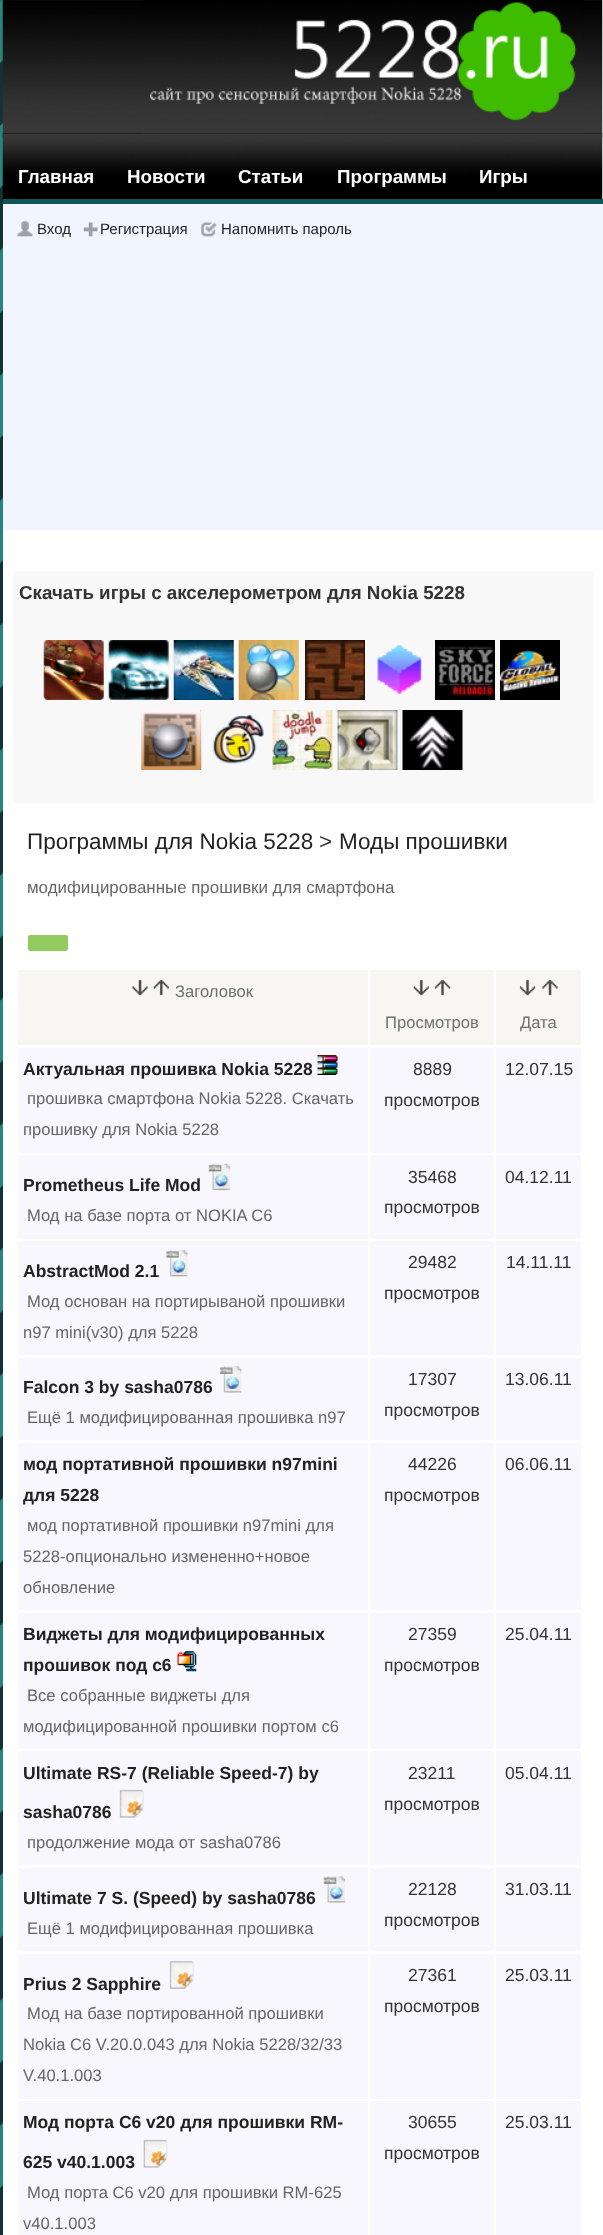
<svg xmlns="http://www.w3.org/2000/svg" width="603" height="2235">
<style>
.a{font:bold 18.75px Liberation Sans;fill:#fff}
.b{font:15px Liberation Sans;fill:#222}
.c{font:bold 18.75px Liberation Sans;fill:#333}
.d{font:22.5px Liberation Sans;fill:#222}
.e{font:22.5px Liberation Sans;fill:#333}
.f{font:16.9px Liberation Sans;fill:#666}
.g{font:16.6px Liberation Sans;fill:#707070}
.h{font:bold 17.5px Liberation Sans;fill:#222}
.i{font:16.6px Liberation Sans;fill:#666}
.j{font:17.5px Liberation Sans;fill:#333}
</style>
<rect width="100%" height="100%" fill="#fff"/>
<image href="1.png" x="0" y="0" width="3" height="2235"/>
<image href="2.png" x="2" y="0" width="601" height="138"/>
<image href="3.png" x="142" y="0" width="442" height="134"/>
<image href="4.png" x="2" y="133" width="601" height="71"/>
<path fill="#105858" d="M3 199h600v5H3z"/>
<path fill="#f1f5ff" d="M3 204h600v326H3z"/>
<image href="5.png" x="17" y="221" width="16" height="16"/>
<image href="6.png" x="83" y="222" width="15" height="15"/>
<image href="7.png" x="201" y="222" width="16" height="15"/>
<path fill="#f8f8f8" d="M13 571h580v232H13z"/>
<image href="8.png" x="43" y="640" width="61" height="60"/>
<image href="9.png" x="108" y="640" width="61" height="60"/>
<image href="10.png" x="173" y="640" width="61" height="60"/>
<image href="11.png" x="238" y="640" width="61" height="60"/>
<image href="12.png" x="305" y="640" width="60" height="60"/>
<image href="13.png" x="377" y="644" width="45" height="50"/>
<image href="14.png" x="435" y="640" width="60" height="60"/>
<image href="15.png" x="500" y="640" width="60" height="60"/>
<image href="16.png" x="141" y="710" width="61" height="60"/>
<image href="17.png" x="212" y="714" width="52" height="50"/>
<image href="18.png" x="272" y="710" width="61" height="60"/>
<image href="19.png" x="337" y="710" width="61" height="60"/>
<image href="20.png" x="402" y="710" width="61" height="60"/>
<rect fill="#92cc5e" x="28" y="935" width="40" height="16" rx="2.5"/>
<path fill="#f7f6f3" d="M18 970h350v75H18z"/>
<image href="21.png" x="132" y="979" width="16" height="17"/>
<image href="22.png" x="153" y="979" width="16" height="17"/>
<path fill="#f7f6f3" d="M370 970h124v75H370z"/>
<image href="23.png" x="413" y="979" width="16" height="17"/>
<image href="24.png" x="434" y="979" width="17" height="17"/>
<path fill="#f7f6f3" d="M496 970h85v75H496z"/>
<image href="25.png" x="519" y="979" width="17" height="17"/>
<image href="26.png" x="542" y="979" width="16" height="17"/>
<path fill="#f7f7fd" d="M18 1048h350v105H18z"/>
<image href="27.png" x="317" y="1055" width="21" height="20"/>
<path fill="#f7f7fd" d="M370 1048h124v105H370z"/>
<path fill="#f7f7fd" d="M496 1048h85v105H496z"/>
<path fill="#f7f7fd" d="M18 1155h350v84H18z"/>
<image href="28.png" x="208" y="1163" width="23" height="28"/>
<path fill="#f7f7fd" d="M370 1155h124v84H370z"/>
<path fill="#f7f7fd" d="M496 1155h85v84H496z"/>
<path fill="#f7f7fd" d="M370 1241h124v114H370z"/>
<path fill="#f7f7fd" d="M496 1241h85v114H496z"/>
<path fill="#f7f7fd" d="M18 1241h350v114H18z"/>
<image href="29.png" x="166" y="1250" width="22" height="27"/>
<path fill="#f7f7fd" d="M18 1358h350v82H18z"/>
<image href="30.png" x="219" y="1366" width="23" height="27"/>
<path fill="#f7f7fd" d="M370 1358h124v82H370z"/>
<path fill="#f7f7fd" d="M496 1358h85v82H496z"/>
<path fill="#f7f7fd" d="M18 1443h350v167H18z"/>
<path fill="#f7f7fd" d="M370 1443h124v167H370z"/>
<path fill="#f7f7fd" d="M496 1443h85v167H496z"/>
<path fill="#f7f7fd" d="M18 1613h350v136H18z"/>
<image href="31.png" x="177" y="1651" width="20" height="21"/>
<path fill="#f7f7fd" d="M370 1613h124v136H370z"/>
<path fill="#f7f7fd" d="M496 1613h85v136H496z"/>
<path fill="#f7f7fd" d="M18 1751h350v114H18z"/>
<image href="32.png" x="119" y="1789" width="25" height="29"/>
<path fill="#f7f7fd" d="M370 1751h124v114H370z"/>
<path fill="#f7f7fd" d="M496 1751h85v114H496z"/>
<path fill="#f7f7fd" d="M370 1868h124v83H370z"/>
<path fill="#f7f7fd" d="M496 1868h85v83H496z"/>
<path fill="#f7f7fd" d="M18 1868h350v83H18z"/>
<image href="33.png" x="323" y="1876" width="23" height="27"/>
<path fill="#f7f7fd" d="M370 1954h124v145H370z"/>
<path fill="#f7f7fd" d="M496 1954h85v145H496z"/>
<path fill="#f7f7fd" d="M18 1954h350v145H18z"/>
<image href="34.png" x="169" y="1961" width="25" height="28"/>
<path fill="#f7f7fd" d="M18 2101h350v134H18z"/>
<image href="35.png" x="143" y="2139" width="25" height="29"/>
<path fill="#f7f7fd" d="M370 2101h124v134H370z"/>
<path fill="#f7f7fd" d="M496 2101h85v134H496z"/>
<text class="a" x="18" y="183">Главная</text>
<text class="a" x="127" y="183">Новости</text>
<text class="a" x="238" y="183">Статьи</text>
<text class="a" x="337" y="183">Программы</text>
<text class="a" x="479" y="183">Игры</text>
<text class="b" x="37" y="234">Вход</text>
<text class="b" x="100" y="234">Регистрация</text>
<text class="b" x="221" y="234">Напомнить пароль</text>
<text class="c" x="19" y="599">Скачать игры с акселерометром для Nokia 5228</text>
<text class="d" x="27" y="849">Программы для Nokia 5228</text>
<text class="e" x="319" y="849">&gt;</text>
<text class="d" x="339" y="849">Моды прошивки</text>
<text class="f" x="27" y="893">модифицированные прошивки для смартфона</text>
<text class="g" x="175" y="997">Заголовок</text>
<text class="g" x="385" y="1028">Просмотров</text>
<text class="g" x="520" y="1028">Дата</text>
<text class="h" x="23" y="1075">Актуальная прошивка Nokia 5228</text>
<text class="i" x="27" y="1104">прошивка смартфона Nokia 5228. Скачать</text>
<text class="i" x="23" y="1135">прошивку для Nokia 5228</text>
<text class="j" x="413" y="1075">8889</text>
<text class="j" x="384" y="1106">просмотров</text>
<text class="j" x="505" y="1075">12.07.15</text>
<text class="h" x="23" y="1191">Prometheus Life Mod</text>
<text class="i" x="27" y="1221">Мод на базе порта от NOKIA C6</text>
<text class="j" x="408" y="1183">35468</text>
<text class="j" x="384" y="1213">просмотров</text>
<text class="j" x="505" y="1183">04.12.11</text>
<text class="j" x="408" y="1268">29482</text>
<text class="j" x="384" y="1299">просмотров</text>
<text class="j" x="506" y="1268">14.11.11</text>
<text class="h" x="23" y="1277">AbstractMod 2.1</text>
<text class="i" x="27" y="1307">Мод основан на портирываной прошивки</text>
<text class="i" x="23" y="1338">n97 mini(v30) для 5228</text>
<text class="h" x="23" y="1393">Falcon 3 by sasha0786</text>
<text class="i" x="27" y="1423">Ещё 1 модифицированная прошивка n97</text>
<text class="j" x="408" y="1385">17307</text>
<text class="j" x="384" y="1416">просмотров</text>
<text class="j" x="505" y="1385">13.06.11</text>
<text class="h" x="23" y="1470">мод портативной прошивки n97mini</text>
<text class="h" x="23" y="1501">для 5228</text>
<text class="i" x="27" y="1531">мод портативной прошивки n97mini для</text>
<text class="i" x="23" y="1562">5228-опционально измененно+новое</text>
<text class="i" x="23" y="1593">обновление</text>
<text class="j" x="408" y="1470">44226</text>
<text class="j" x="384" y="1501">просмотров</text>
<text class="j" x="505" y="1470">06.06.11</text>
<text class="h" x="23" y="1640">Виджеты для модифицированных</text>
<text class="h" x="23" y="1671">прошивок под с6</text>
<text class="i" x="27" y="1701">Все собранные виджеты для</text>
<text class="i" x="23" y="1732">модифицированной прошивки портом с6</text>
<text class="j" x="408" y="1640">27359</text>
<text class="j" x="384" y="1671">просмотров</text>
<text class="j" x="505" y="1640">25.04.11</text>
<text class="h" x="23" y="1779">Ultimate RS-7 (Reliable Speed-7) by</text>
<text class="h" x="23" y="1818">sasha0786</text>
<text class="i" x="27" y="1848">продолжение мода от sasha0786</text>
<text class="j" x="408" y="1779">23211</text>
<text class="j" x="384" y="1810">просмотров</text>
<text class="j" x="505" y="1779">05.04.11</text>
<text class="j" x="408" y="1895">22128</text>
<text class="j" x="384" y="1926">просмотров</text>
<text class="j" x="505" y="1895">31.03.11</text>
<text class="h" x="23" y="1904">Ultimate 7 S. (Speed) by sasha0786</text>
<text class="i" x="27" y="1934">Ещё 1 модифицированная прошивка</text>
<text class="j" x="408" y="1981">27361</text>
<text class="j" x="384" y="2012">просмотров</text>
<text class="j" x="505" y="1981">25.03.11</text>
<text class="h" x="23" y="1990">Prius 2 Sapphire</text>
<text class="i" x="27" y="2019">Мод на базе портированной прошивки</text>
<text class="i" x="23" y="2050">Nokia C6 V.20.0.043 для Nokia 5228/32/33</text>
<text class="i" x="23" y="2081">V.40.1.003</text>
<text class="h" x="23" y="2128">Мод порта C6 v20 для прошивки RM-</text>
<text class="h" x="23" y="2168">625 v40.1.003</text>
<text class="i" x="27" y="2198">Мод порта C6 v20 для прошивки RM-625</text>
<text class="i" x="23" y="2229">v40.1.003</text>
<text class="j" x="408" y="2128">30655</text>
<text class="j" x="384" y="2159">просмотров</text>
<text class="j" x="505" y="2128">25.03.11</text>
</svg>
